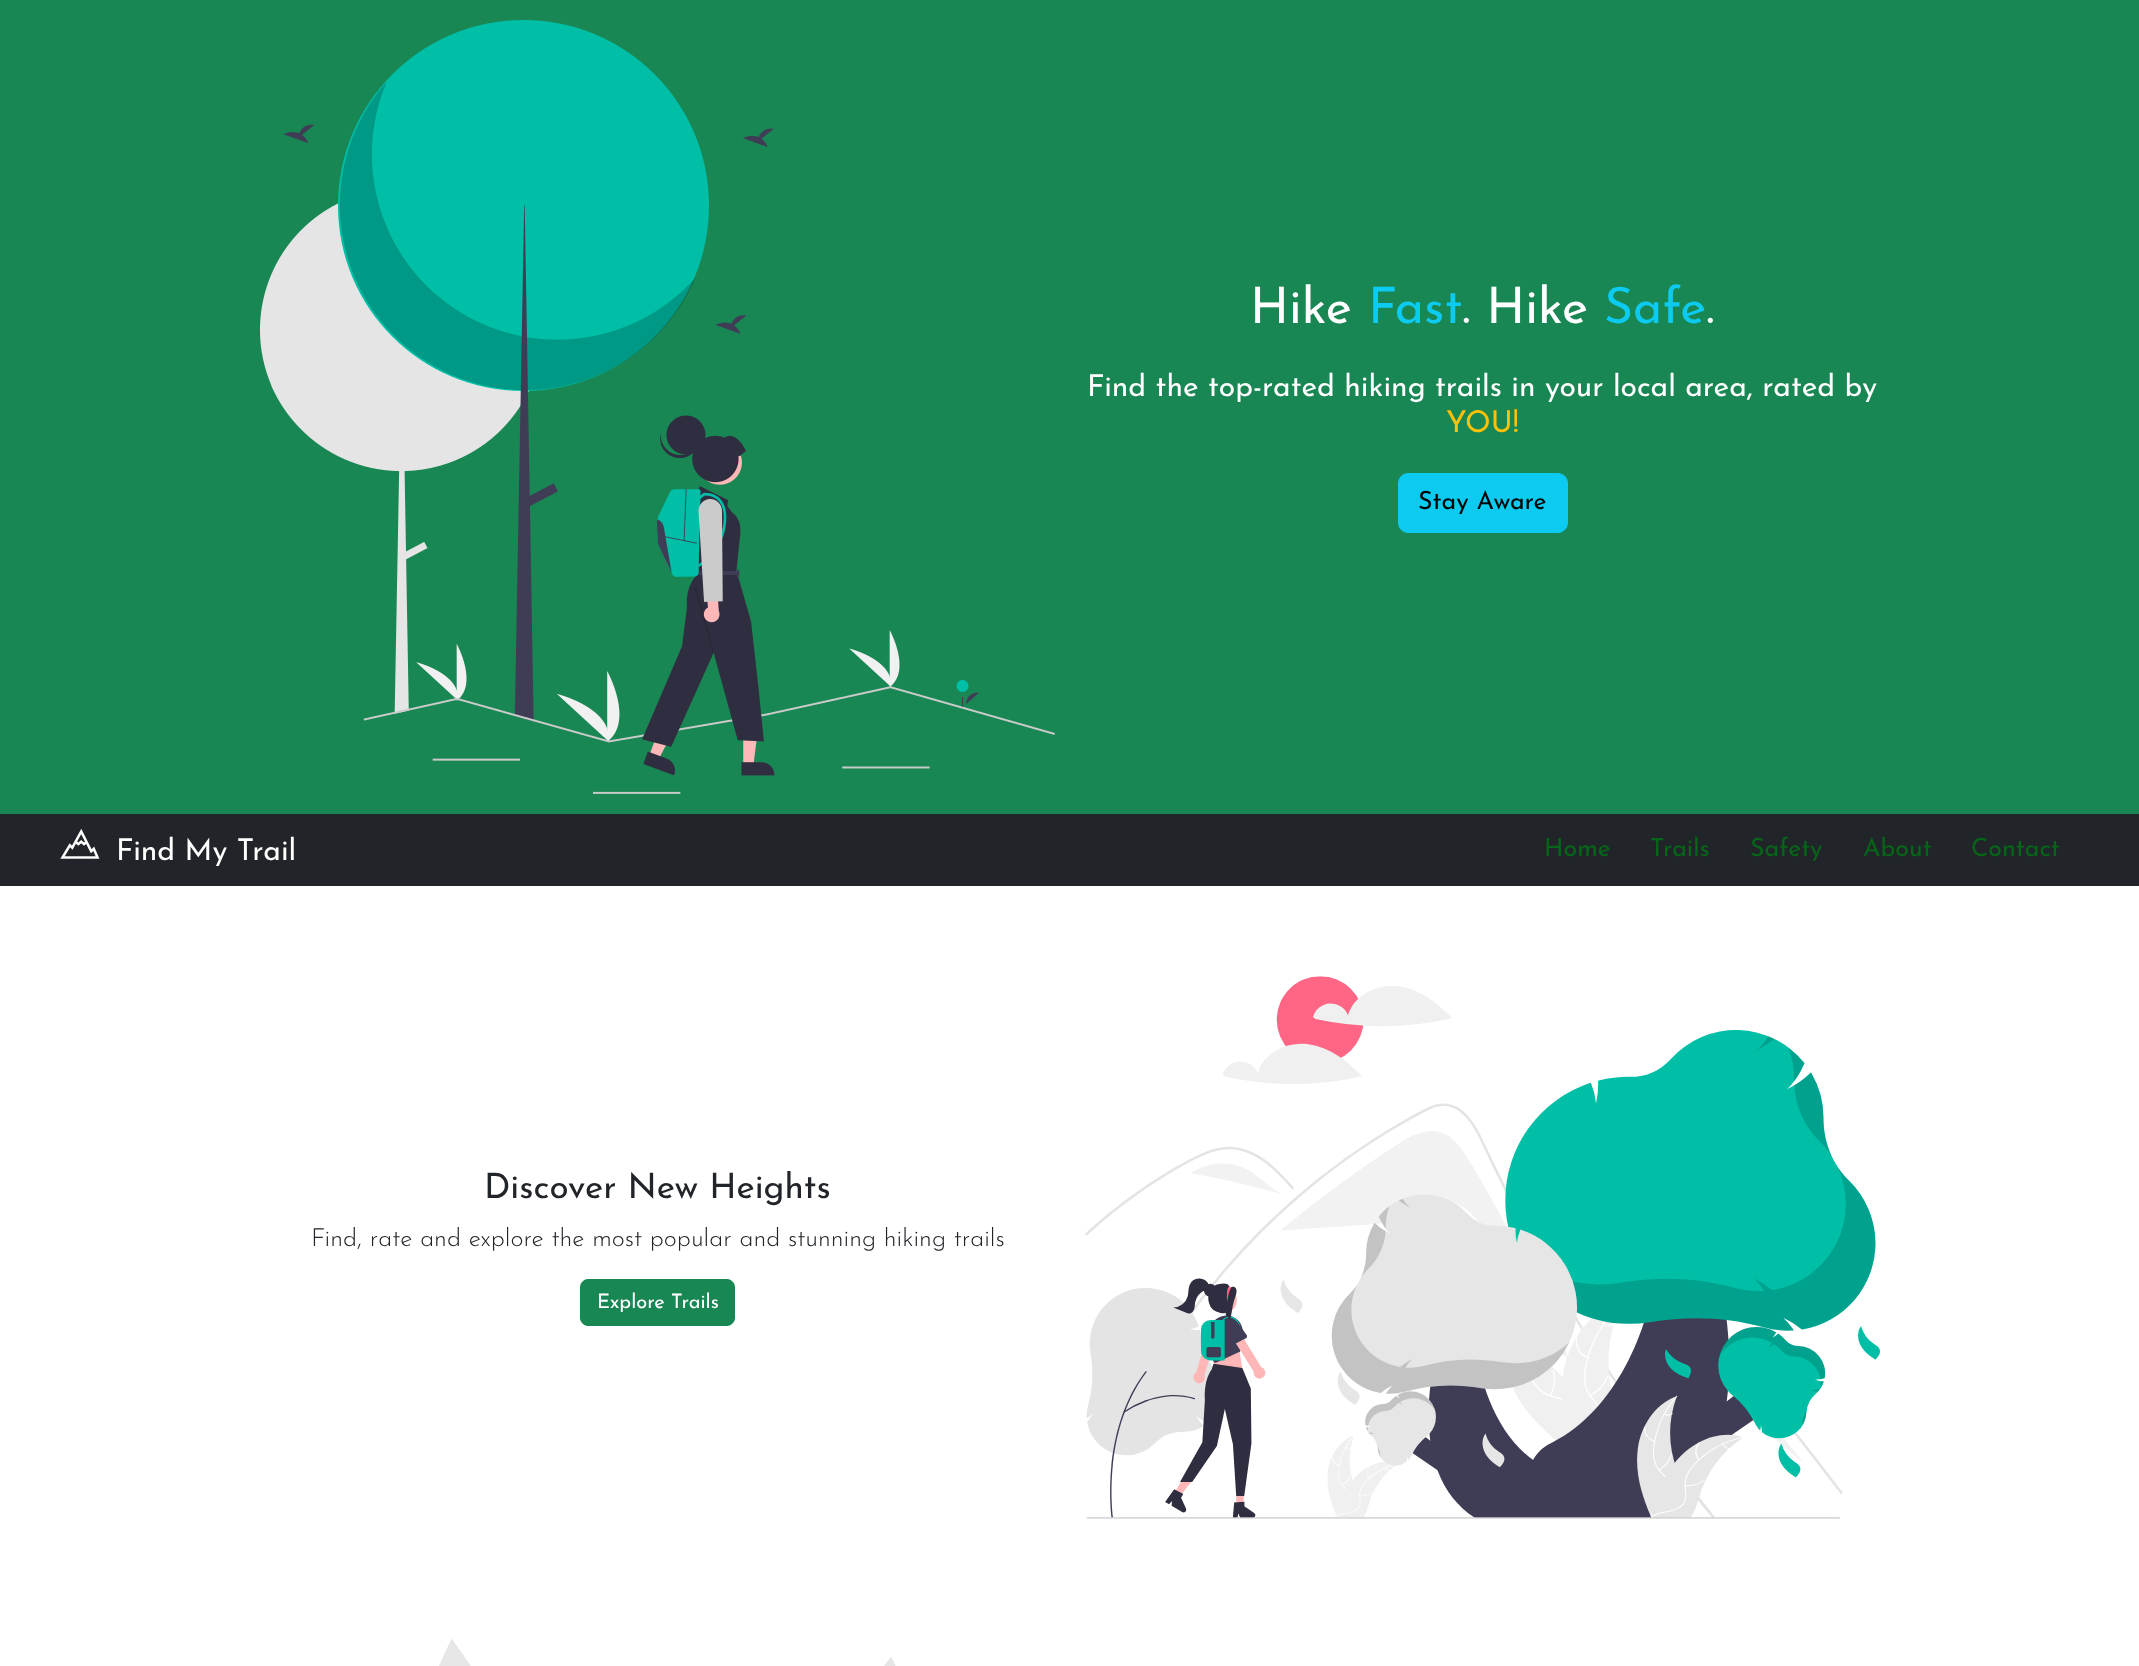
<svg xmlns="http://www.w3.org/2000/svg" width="2139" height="1666">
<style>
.a{font:50px Josefin Sans;fill:#fff}
.b{font:50px Josefin Sans;fill:#0dcaf0}
.c{font:30px Josefin Sans;fill:#fff}
.d{font:30px Josefin Sans;fill:#ffc107}
.e{font:25px Josefin Sans;fill:#000}
.f{font:25px Josefin Sans;fill:#066617}
.g{font:35px Josefin Sans;fill:#212529}
.h{font:300 25px Josefin Sans;fill:#212529}
.i{font:20px Josefin Sans;fill:#fff}
</style>
<rect width="100%" height="100%" fill="#fff"/>
<path fill="#198754" d="M0 0h2139v814H0z"/>
<image href="1.png" x="260" y="20" width="795" height="774"/>
<rect fill="#0dcaf0" stroke="#0dcaf0" x="1398.5" y="473.5" width="169" height="59" rx="9.5"/>
<path fill="#212529" d="M0 814h2139v72H0z"/>
<image href="2.png" x="60" y="828" width="40" height="31"/>
<rect fill="#198754" stroke="#198754" x="580.5" y="1279.5" width="154" height="46" rx="7.5"/>
<image href="3.png" x="1085" y="976" width="795" height="543"/>
<image href="4.png" x="439" y="1639" width="457" height="27"/>
<text class="a" x="1250" y="323">Hike</text>
<text class="b" x="1368" y="323">Fast</text>
<text class="a" x="1462" y="323">. Hike</text>
<text class="b" x="1604" y="323">Safe</text>
<text class="a" x="1706" y="323">.</text>
<text class="c" x="1087" y="396">Find the top-rated hiking trails in your local area, rated by</text>
<text class="d" x="1446" y="432">YOU!</text>
<text class="e" x="1418" y="509">Stay Aware</text>
<text class="c" x="116" y="860">Find My Trail</text>
<text class="f" x="1544" y="856">Home</text>
<text class="f" x="1650" y="856">Trails</text>
<text class="f" x="1750" y="856">Safety</text>
<text class="f" x="1863" y="856">About</text>
<text class="f" x="1971" y="856">Contact</text>
<text class="g" x="484" y="1198">Discover New Heights</text>
<text class="h" x="311" y="1246">Find, rate and explore the most popular and stunning hiking trails</text>
<text class="i" x="597" y="1308">Explore Trails</text>
</svg>
